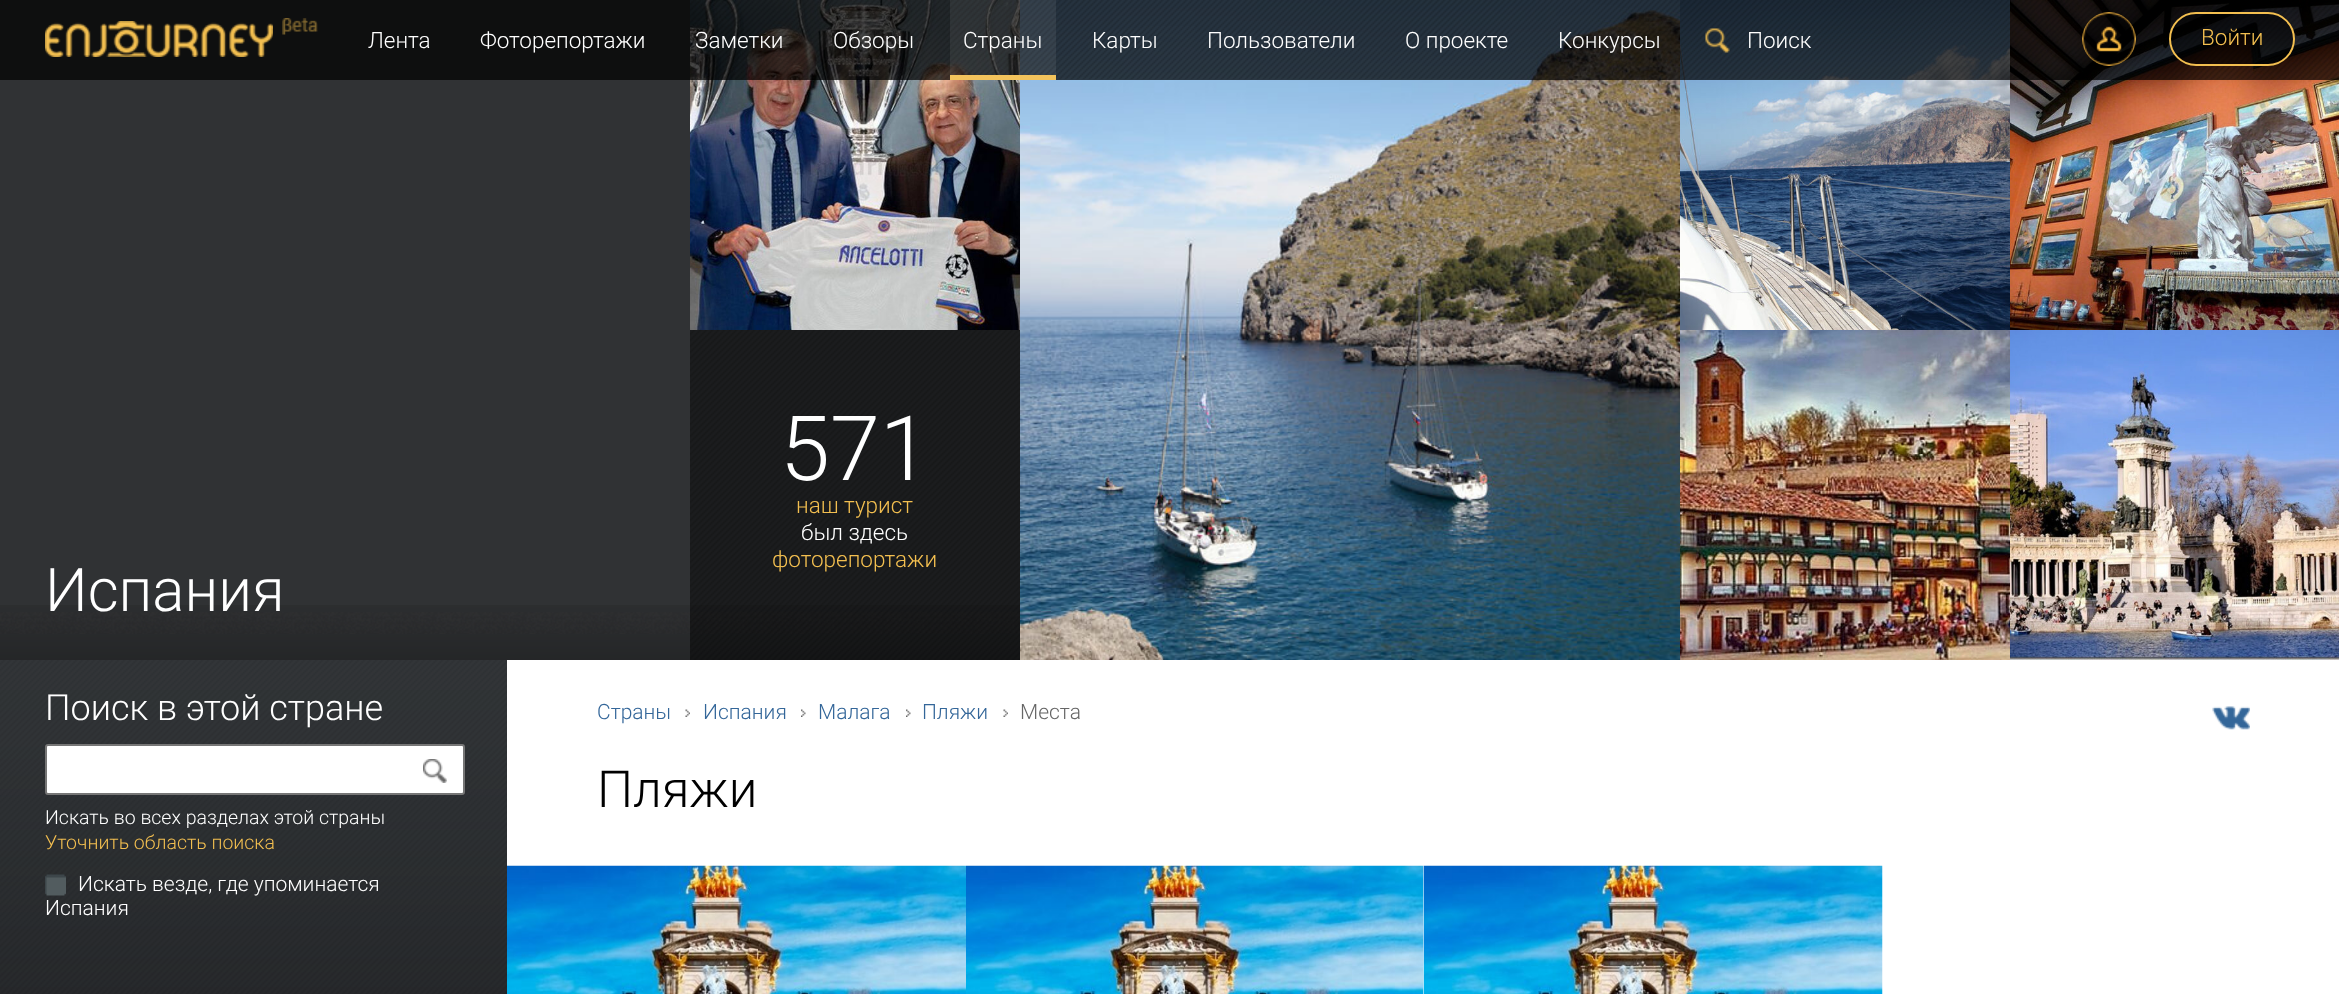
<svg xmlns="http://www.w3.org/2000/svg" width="2339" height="994">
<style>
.a{font:300 22.5px Roboto;fill:#fff}
.b{font:300 22.5px Roboto;fill:#f3bf50}
.c{font:300 90px Roboto;fill:#fff}
.d{font:300 60px Roboto;fill:#fff}
.e{font:300 36px Roboto;fill:#fff}
.f{font:300 19.5px Roboto;fill:#fff}
.g{font:300 19.5px Roboto;fill:#f3bf50}
.h{font:300 21px Roboto;fill:#fff}
.i{font:300 21px Roboto;fill:#369}
.j{font:300 21px Roboto;fill:#666}
.k{font:300 51px Roboto;fill:#000}
</style>
<rect width="100%" height="100%" fill="#303234"/>
<image href="7.png" x="690" y="0" width="330" height="330"/>
<image href="8.png" x="1020" y="0" width="660" height="660"/>
<image href="9.png" x="1680" y="0" width="330" height="330"/>
<image href="10.png" x="2010" y="0" width="329" height="330"/>
<path fill="#000000b3" d="M0 0h2339v80H0z"/>
<image href="1.png" x="690" y="0" width="1649" height="80"/>
<image href="2.png" x="45" y="21" width="228" height="36"/>
<image href="3.png" x="282" y="18" width="36" height="17"/>
<path fill="#f3bf50" d="M950 75h106v5H950z"/>
<path fill="#ffffff12" d="M950 0h106v80H950z"/>
<image href="4.png" x="1705" y="28" width="25" height="25"/>
<image href="5.png" x="2082" y="12" width="54" height="54"/>
<image href="6.png" x="2169" y="12" width="126" height="54"/>
<rect fill="none" stroke="#f3bf50" stroke-width="2" x="2170" y="13" width="124" height="52" rx="26"/>
<image href="15.png" x="0" y="612" width="1020" height="22"/>
<image href="14.png" x="0" y="605" width="1020" height="55"/>
<image href="11.png" x="690" y="330" width="330" height="330"/>
<path fill="#00000066" d="M690 330h330v330H690z"/>
<image href="12.png" x="1680" y="330" width="330" height="330"/>
<image href="13.png" x="2010" y="330" width="329" height="330"/>
<image href="16.png" x="0" y="660" width="507" height="334"/>
<image href="17.png" x="0" y="660" width="507" height="334"/>
<rect fill="#fff" stroke="#767676" stroke-width="2" x="46" y="745" width="418" height="49" rx="2"/>
<image href="18.png" x="423" y="759" width="24" height="24"/>
<image href="19.png" x="45" y="874" width="21" height="22"/>
<path fill="#fff" d="M507 660h1832v334H507z"/>
<image href="20.png" x="685" y="709" width="5" height="8"/>
<image href="21.png" x="801" y="709" width="5" height="8"/>
<image href="21.png" x="906" y="709" width="5" height="8"/>
<image href="22.png" x="1003" y="709" width="5" height="8"/>
<image href="23.png" x="2212" y="706" width="38" height="24"/>
<image href="24.png" x="507" y="865" width="459" height="129"/>
<image href="25.png" x="966" y="865" width="458" height="129"/>
<image href="26.png" x="1423" y="865" width="460" height="129"/>
<text class="a" x="368" y="48">Лента</text>
<text class="a" x="480" y="48">Фоторепортажи</text>
<text class="a" x="695" y="48">Заметки</text>
<text class="a" x="833" y="48">Обзоры</text>
<text class="a" x="963" y="48">Страны</text>
<text class="a" x="1092" y="48">Карты</text>
<text class="a" x="1207" y="48">Пользователи</text>
<text class="a" x="1405" y="48">О проекте</text>
<text class="a" x="1558" y="48">Конкурсы</text>
<text class="a" x="1747" y="48">Поиск</text>
<text class="b" x="2201" y="45">Войти</text>
<text class="c" x="780" y="480">571</text>
<text class="b" x="796" y="513">наш турист</text>
<text class="a" x="801" y="540">был здесь</text>
<text class="b" x="772" y="567">фоторепортажи</text>
<text class="d" x="45" y="611">Испания</text>
<text class="e" x="45" y="720">Поиск в этой стране</text>
<text class="f" x="45" y="824">Искать во всех разделах этой страны</text>
<text class="g" x="45" y="849">Уточнить область поиска</text>
<text class="h" x="78" y="891">Искать везде, где упоминается</text>
<text class="h" x="45" y="915">Испания</text>
<text class="i" x="597" y="719">Страны</text>
<text class="i" x="703" y="719">Испания</text>
<text class="i" x="818" y="719">Малага</text>
<text class="i" x="922" y="719">Пляжи</text>
<text class="j" x="1020" y="719">Места</text>
<text class="k" x="597" y="807">Пляжи</text>
</svg>
